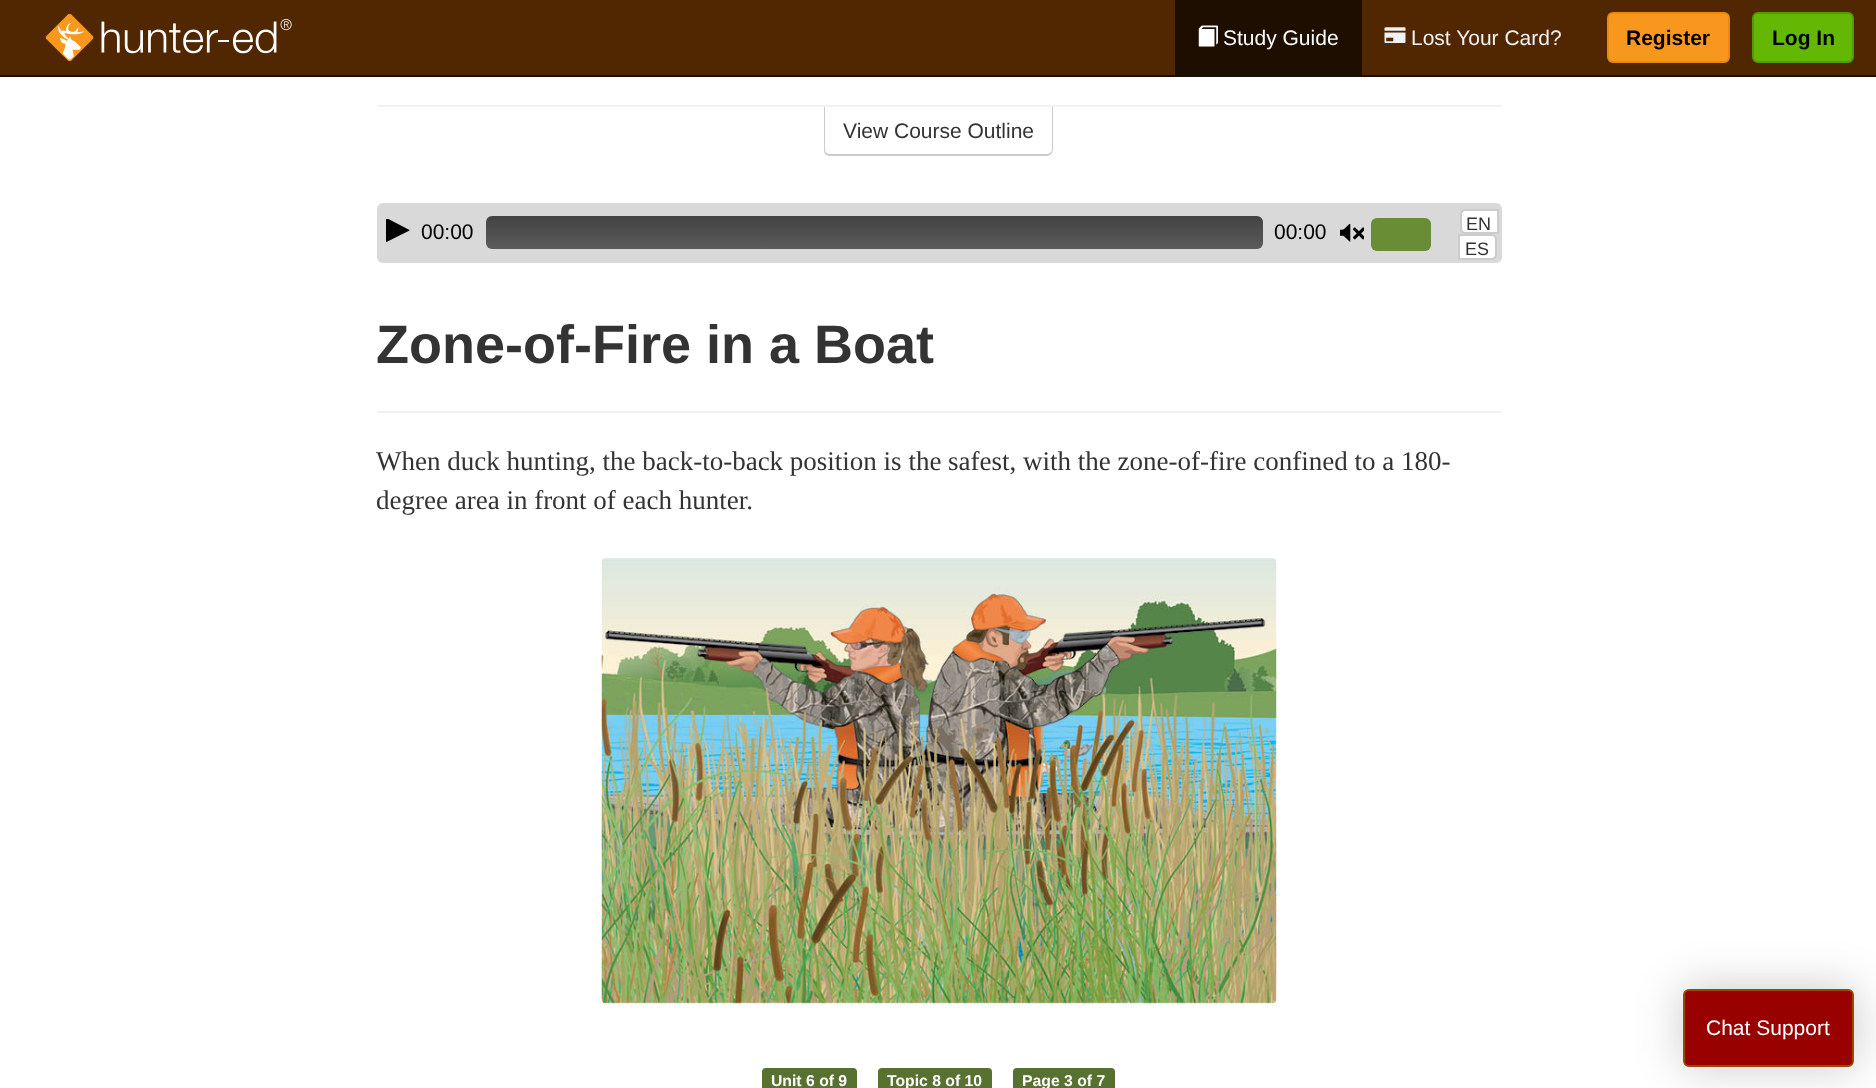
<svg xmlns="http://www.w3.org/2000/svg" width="1876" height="1088">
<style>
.a{font:21px Liberation Sans;fill:#fff}
.b{font:21px Liberation Sans;fill:#f2f2f2}
.c{font:bold 21px Liberation Sans;fill:#000}
.d{font:21px Liberation Sans;fill:#333}
.e{font:21px Liberation Sans;fill:#000}
.f{font:18px Liberation Sans;fill:#333}
.g{font:bold 54px Liberation Sans;fill:#333}
.h{font:27px Liberation Serif;fill:#333}
.i{font:bold 15.75px Liberation Sans;fill:#fff}
</style>
<defs>
<clipPath id="clip1"><path d="M386 219h24v24H386z"/></clipPath>
<linearGradient id="g1" gradientUnits="userSpaceOnUse" x1="875" y1="216" x2="875" y2="249"><stop offset="0" stop-color="#434343"/><stop offset="1" stop-color="#5b5b5b"/></linearGradient>
</defs>
<rect width="100%" height="100%" fill="#fff"/>
<path fill="#502700" d="M0 0h1876v75H0z"/>
<path fill="#1d0e00" d="M0 75h1876v2H0z"/>
<image href="1.png" x="45" y="14" width="247" height="47"/>
<path fill="#1d0e00" d="M1175 0h187v75H1175z"/>
<image href="2.png" x="1198" y="25" width="20" height="22"/>
<image href="3.png" x="1384" y="27" width="22" height="16"/>
<rect fill="#f7971d" stroke="#eb8909" stroke-width="2" x="1608" y="13" width="121" height="49" rx="5"/>
<rect fill="#64b804" stroke="#539a03" stroke-width="2" x="1753" y="13" width="100" height="49" rx="5"/>
<path fill="#ccc" fill-rule="evenodd" d="M824 106h229v44c0 3-3 6-6 6h-217c-4 0-6-3-6-6zm1 0h227v44c0 2-3 4-5 4h-217c-3 0-5-2-5-4z"/>
<path fill="#f2f2f2" d="M377 105h1125v2H377z"/>
<rect fill="#d9d9d9" stroke="#d9d9d9" stroke-width="2" x="378" y="204" width="1123" height="58" rx="5"/>
<g clip-path="url(#clip1)">
<path fill="#000" d="M409.5 230.5l-24 12v-25l24 12.5z"/>
</g>
<rect fill="url(#g1)" x="486" y="216" width="777" height="33" rx="6"/>
<image href="4.png" x="1340" y="224" width="24" height="18"/>
<rect fill="#688d34" x="1371" y="218" width="60" height="33" rx="6"/>
<path fill="#fff" stroke="#ccc" stroke-width="2" d="M1465 210h33v23h-33c-2 0-4-2-4-4v-15c0-2 2-4 4-4z"/>
<path fill="#fff" stroke="#ccc" stroke-width="2" d="M1459 235h33c2 0 4 2 4 4v16c0 2-2 4-4 4h-33z"/>
<path fill="#f2f2f2" d="M377 411h1125v2H377z"/>
<image href="5.png" x="601" y="558" width="676" height="446"/>
<rect fill="#567130" x="762" y="1068" width="95" height="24" rx="4"/>
<rect fill="#567130" x="878" y="1068" width="114" height="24" rx="4"/>
<rect fill="#567130" x="1013" y="1068" width="102" height="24" rx="4"/>
<rect fill="#00000033" filter="blur(22.5px)" x="1682" y="987" width="174" height="81" rx="8"/>
<rect fill="#900" stroke="#964b00" stroke-width="2" x="1684" y="990" width="169" height="76" rx="5"/>
<text class="a" x="1223" y="45">Study Guide</text>
<text class="b" x="1411" y="45">Lost Your Card?</text>
<text class="c" x="1626" y="45">Register</text>
<text class="c" x="1772" y="45">Log In</text>
<text class="d" x="843" y="138">View Course Outline</text>
<text class="e" x="421" y="239">00:00</text>
<text class="e" x="1274" y="239">00:00</text>
<text class="f" x="1466" y="230">EN</text>
<text class="f" x="1465" y="255">ES</text>
<text class="g" x="376" y="363">Zone-of-Fire in a Boat</text>
<text class="h" x="376" y="470">When duck hunting, the back-to-back position is the safest, with the zone-of-fire confined to a 180-</text>
<text class="h" x="376" y="509">degree area in front of each hunter.</text>
<text class="i" x="771" y="1086">Unit 6 of 9</text>
<text class="i" x="887" y="1086">Topic 8 of 10</text>
<text class="i" x="1022" y="1086">Page 3 of 7</text>
<text class="a" x="1706" y="1035">Chat Support</text>
</svg>
